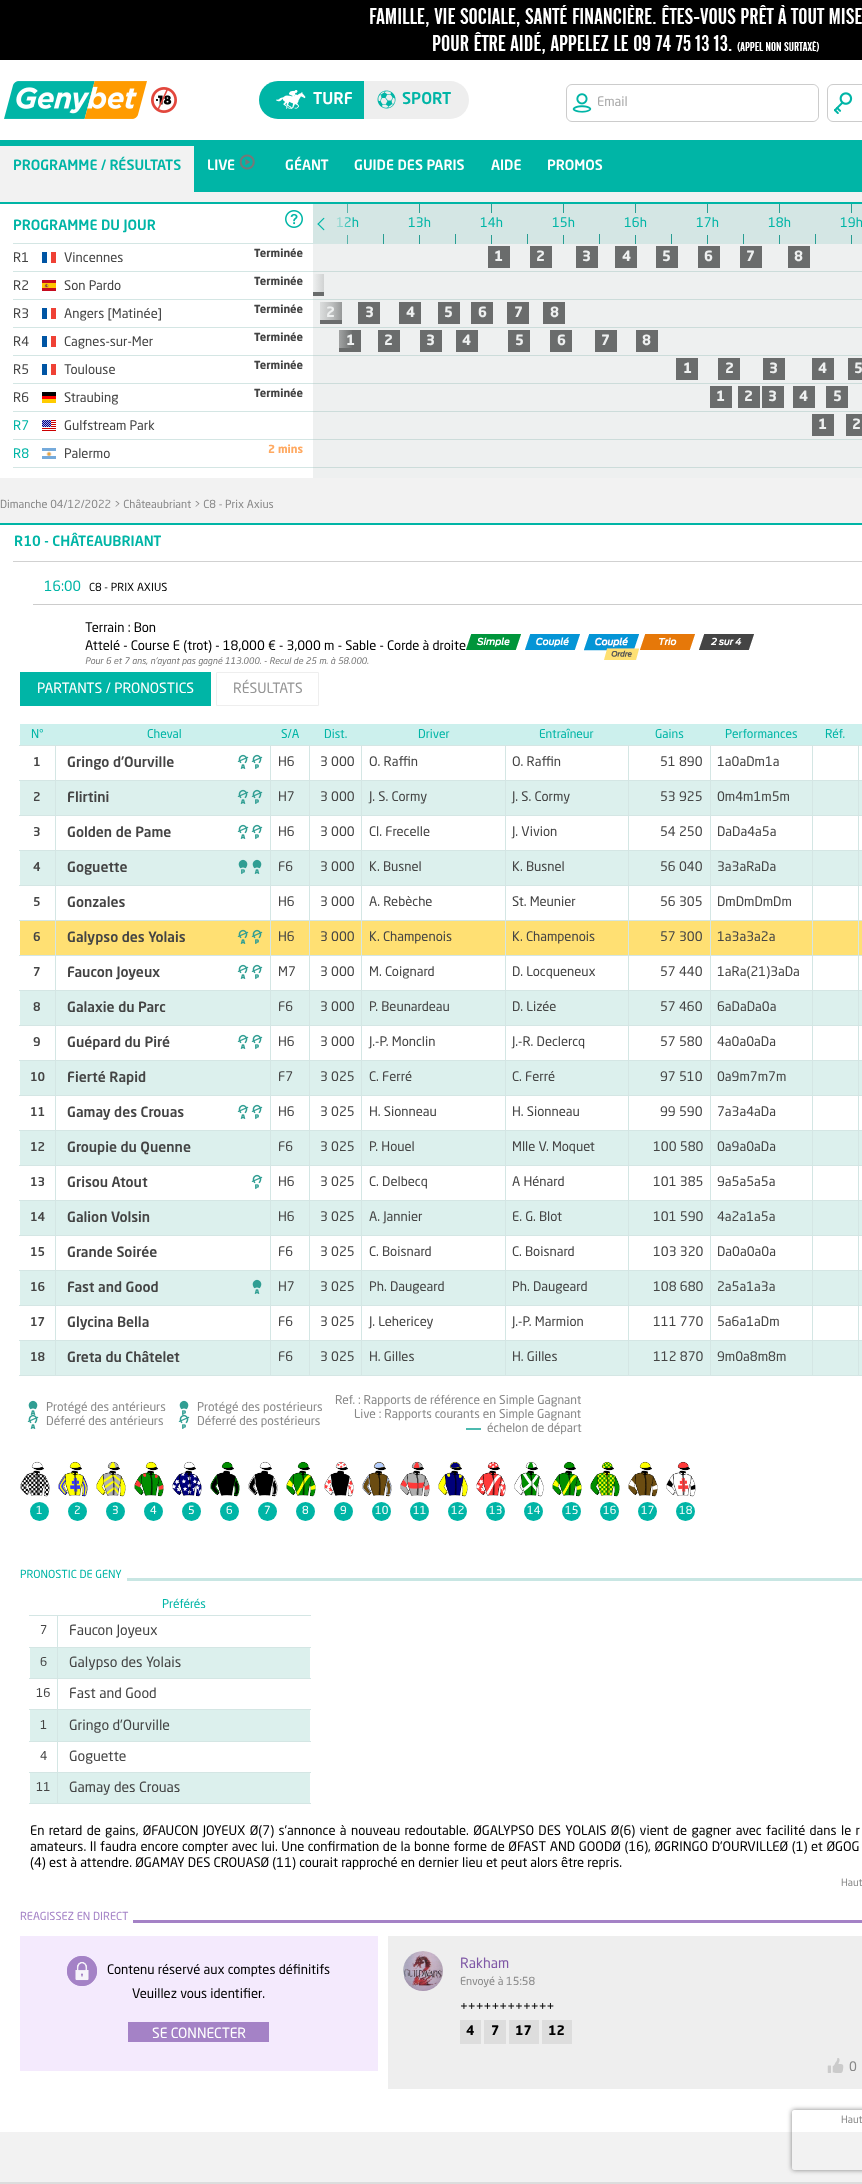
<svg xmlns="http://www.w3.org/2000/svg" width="862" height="2184">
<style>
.a{font:500 16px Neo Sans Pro;fill:#fff}
.b{font:500 16px Neo Sans Pro;fill:#00b5a6}
.c{font:13px Neo Sans Pro;fill:#a9a9a9}
.d{font:500 14px Neo Sans Pro;fill:#00b5a6}
.e{font:500 14px Neo Sans Pro;fill:#fff}
.f{font:13px Neo Sans Pro;fill:#444}
.g{font:bold 11px Neo Sans Pro;fill:#444}
.h{font:13px Neo Sans Pro;fill:#00b5a6}
.i{font:bold 11px Neo Sans Pro;fill:#ffa961}
.j{font:bold 14px Neo Sans Pro;fill:#eef0f0}
.k{font:11px Neo Sans Pro;fill:#888}
.l{font:14px Neo Sans Pro;fill:#00b5a6}
.m{font:11px Neo Sans Pro;fill:#000}
.n{font:13px Neo Sans Pro;fill:#000}
.o{font:italic 9px Neo Sans Pro;fill:#777}
.p{font:14px Neo Sans Pro;fill:#fff}
.q{font:14px Neo Sans Pro;fill:#959595}
.r{font:12px Neo Sans Pro;fill:#00b5a6}
.s{font:500 12px Neo Sans Pro;fill:#444}
.t{font:500 14px Neo Sans Pro;fill:#444}
.u{font:12px Neo Sans Pro;fill:#888}
.v{font:11px Neo Sans Pro;fill:#fff}
.w{font:11px Neo Sans Pro;fill:#00b5a6}
.x{font:12px Neo Sans Pro;fill:#444}
.y{font:14px Neo Sans Pro;fill:#444}
.z{font:10px Neo Sans Pro;fill:#888}
.a1{font:11px Neo Sans Pro;fill:#a482c6}
.b1{font:14px Neo Sans Pro;fill:#7f58a6}
.c1{font:bold 13px Neo Sans Pro;fill:#000}
.d1{font:13px Neo Sans Pro;fill:#888}
</style>
<defs>
<linearGradient id="g1" gradientUnits="userSpaceOnUse" x1="313" y1="282" x2="353" y2="282"><stop offset="0" stop-color="#eef0f0"/><stop offset="0.5" stop-color="#eef0f0" stop-opacity="0.6"/><stop offset="1" stop-color="#eef0f0" stop-opacity="0"/></linearGradient>
<clipPath id="clip1"><path d="M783 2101h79v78h-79zm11 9h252c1 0 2 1 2 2v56c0 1-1 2-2 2h-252c-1 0-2-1-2-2v-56c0-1 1-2 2-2z" clip-rule="evenodd"/></clipPath>
<linearGradient id="g2" gradientUnits="userSpaceOnUse" x1="313" y1="224" x2="353" y2="224"><stop offset="0" stop-color="#d4e6e4"/><stop offset="0.5" stop-color="#d4e6e4"/><stop offset="1" stop-color="#d4e6e4" stop-opacity="0"/></linearGradient>
<linearGradient id="g3" gradientUnits="userSpaceOnUse" x1="313" y1="310" x2="353" y2="310"><stop offset="0" stop-color="#eef0f0"/><stop offset="0.5" stop-color="#eef0f0" stop-opacity="0.6"/><stop offset="1" stop-color="#eef0f0" stop-opacity="0"/></linearGradient>
<linearGradient id="g4" gradientUnits="userSpaceOnUse" x1="313" y1="338" x2="353" y2="338"><stop offset="0" stop-color="#eef0f0"/><stop offset="0.5" stop-color="#eef0f0" stop-opacity="0.6"/><stop offset="1" stop-color="#eef0f0" stop-opacity="0"/></linearGradient>
</defs>
<rect width="100%" height="100%" fill="#f2f2f2"/>
<path fill="#000" d="M0 0h862v60H0z"/>
<image href="1.png" x="370" y="5" width="492" height="49"/>
<path fill="#fff" d="M0 60h862v80H0z"/>
<image href="2.png" x="4" y="81" width="143" height="38"/>
<image href="3.png" x="151" y="87" width="26" height="26"/>
<rect fill="#eee" x="259" y="81" width="210" height="38" rx="19"/>
<path fill="#00b5a6" d="M278 81h86v38h-86c-10.5 0-19-8.5-19-19c0-10.5 8.5-19 19-19z"/>
<image href="4.png" x="276" y="90" width="30" height="20"/>
<image href="5.png" x="377" y="90" width="19" height="19"/>
<rect fill="none" stroke="#ccc" x="566.5" y="84.5" width="252" height="37" rx="5.5"/>
<image href="6.png" x="572" y="93" width="20" height="20"/>
<rect fill="#fff" x="597" y="85" width="221" height="36" rx="6"/>
<rect fill="none" stroke="#ccc" x="827.5" y="84.5" width="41" height="37" rx="5.5"/>
<image href="7.png" x="834" y="92" width="19" height="22"/>
<path fill="#00b5a6" d="M0 140h862v52H0z"/>
<path fill="#f2f2f2" d="M0 146h194v46H0z"/>
<image href="8.png" x="239" y="154" width="16" height="16"/>
<path fill="#fff" d="M0 204h313v274H0z"/>
<path fill="#eef0f0" d="M313 244h549v234H313z"/>
<path fill="#00b5a6" d="M0 202h862v2H0z"/>
<path fill="#d4e6e4" d="M13 243h300v1H13z"/>
<image href="9.png" x="285" y="210" width="18" height="18"/>
<path fill="#d4e6e4" d="M13 271h300v1H13z"/>
<image href="10.png" x="42" y="252" width="14" height="11"/>
<path fill="#d4e6e4" d="M13 299h300v1H13z"/>
<image href="11.png" x="42" y="280" width="14" height="11"/>
<path fill="#d4e6e4" d="M13 327h300v1H13z"/>
<image href="10.png" x="42" y="308" width="14" height="11"/>
<path fill="#d4e6e4" d="M13 355h300v1H13z"/>
<image href="10.png" x="42" y="336" width="14" height="11"/>
<path fill="#d4e6e4" d="M13 383h300v1H13z"/>
<image href="10.png" x="42" y="364" width="14" height="11"/>
<path fill="#d4e6e4" d="M13 411h300v1H13z"/>
<image href="12.png" x="42" y="392" width="14" height="11"/>
<path fill="#d4e6e4" d="M13 439h300v1H13z"/>
<image href="13.png" x="42" y="420" width="14" height="11"/>
<path fill="#d4e6e4" d="M13 467h300v1H13z"/>
<image href="14.png" x="42" y="448" width="14" height="11"/>
<path fill="#d4e6e4" d="M333 204h529v40H333z"/>
<path fill="#289e93" d="M347 204h1v9H347z"/>
<path fill="#289e93" d="M347 235h1v9H347z"/>
<path fill="#289e93" d="M419 204h1v9H419z"/>
<path fill="#289e93" d="M419 235h1v9H419z"/>
<path fill="#289e93" d="M491 204h1v9H491z"/>
<path fill="#289e93" d="M491 235h1v9H491z"/>
<path fill="#289e93" d="M563 204h1v9H563z"/>
<path fill="#289e93" d="M563 235h1v9H563z"/>
<path fill="#289e93" d="M635 204h1v9H635z"/>
<path fill="#289e93" d="M635 235h1v9H635z"/>
<path fill="#289e93" d="M707 204h1v9H707z"/>
<path fill="#289e93" d="M707 235h1v9H707z"/>
<path fill="#289e93" d="M779 204h1v9H779z"/>
<path fill="#289e93" d="M779 235h1v9H779z"/>
<path fill="#289e93" d="M851 204h1v9H851z"/>
<path fill="#289e93" d="M851 235h1v9H851z"/>
<path fill="#289e93" d="M383 234h1v10H383z"/>
<path fill="#289e93" d="M455 234h1v10H455z"/>
<path fill="#289e93" d="M527 234h1v10H527z"/>
<path fill="#289e93" d="M599 234h1v10H599z"/>
<path fill="#289e93" d="M671 234h1v10H671z"/>
<path fill="#289e93" d="M743 234h1v10H743z"/>
<path fill="#289e93" d="M815 234h1v10H815z"/>
<path fill="#ccdcda" d="M313 271h549v1H313z"/>
<path fill="#6a6c6c" d="M488 246h22v22H488z"/>
<path fill="#6a6c6c" d="M530 246h22v22H530z"/>
<path fill="#6a6c6c" d="M576 246h22v22H576z"/>
<path fill="#6a6c6c" d="M615 246h22v22H615z"/>
<path fill="#6a6c6c" d="M656 246h22v22H656z"/>
<path fill="#6a6c6c" d="M698 246h22v22H698z"/>
<path fill="#6a6c6c" d="M740 246h22v22H740z"/>
<path fill="#6a6c6c" d="M788 246h22v22H788z"/>
<path fill="#ccdcda" d="M313 299h549v1H313z"/>
<path fill="#6a6c6c" d="M313 274h11v22H313z"/>
<path fill="url(#g1)" d="M313 274h11v18H313z"/>
<path fill="#ccdcda" d="M313 327h549v1H313z"/>
<path fill="#6a6c6c" d="M320 302h22v22H320z"/>
<path fill="#6a6c6c" d="M358 302h22v22H358z"/>
<path fill="#6a6c6c" d="M399 302h22v22H399z"/>
<path fill="#6a6c6c" d="M438 302h22v22H438z"/>
<path fill="#6a6c6c" d="M471 302h22v22H471z"/>
<path fill="#6a6c6c" d="M507 302h22v22H507z"/>
<path fill="#6a6c6c" d="M543 302h22v22H543z"/>
<path fill="#ccdcda" d="M313 355h549v1H313z"/>
<path fill="#6a6c6c" d="M339 330h22v22H339z"/>
<path fill="#6a6c6c" d="M378 330h22v22H378z"/>
<path fill="#6a6c6c" d="M420 330h22v22H420z"/>
<path fill="#6a6c6c" d="M456 330h22v22H456z"/>
<path fill="#6a6c6c" d="M508 330h22v22H508z"/>
<path fill="#6a6c6c" d="M550 330h22v22H550z"/>
<path fill="#6a6c6c" d="M595 330h22v22H595z"/>
<path fill="#6a6c6c" d="M636 330h22v22H636z"/>
<path fill="#ccdcda" d="M313 383h549v1H313z"/>
<path fill="#6a6c6c" d="M676 358h22v22H676z"/>
<path fill="#6a6c6c" d="M718 358h22v22H718z"/>
<path fill="#6a6c6c" d="M763 358h22v22H763z"/>
<path fill="#6a6c6c" d="M812 358h22v22H812z"/>
<path fill="#6a6c6c" d="M848 358h14v22H848z"/>
<path fill="#ccdcda" d="M313 411h549v1H313z"/>
<path fill="#6a6c6c" d="M710 386h22v22H710z"/>
<path fill="#6a6c6c" d="M738 386h22v22H738z"/>
<path fill="#6a6c6c" d="M762 386h22v22H762z"/>
<path fill="#6a6c6c" d="M793 386h22v22H793z"/>
<path fill="#6a6c6c" d="M826 386h22v22H826z"/>
<path fill="#ccdcda" d="M313 439h549v1H313z"/>
<path fill="#6a6c6c" d="M812 414h22v22H812z"/>
<path fill="#6a6c6c" d="M846 414h16v22H846z"/>
<path fill="#ccdcda" d="M313 467h549v1H313z"/>
<path fill="#fff" d="M0 525h862v1607H0z"/>
<path fill="#00b5a6" d="M0 523h862v2H0z"/>
<path fill="#d1d1d1" d="M13 561h849v1H13z"/>
<path fill="#ccc" d="M33 604h829v1H33z"/>
<image href="16.png" x="466" y="634" width="55" height="16"/>
<image href="17.png" x="525" y="634" width="55" height="16"/>
<image href="18.png" x="584" y="634" width="55" height="26"/>
<image href="19.png" x="640" y="634" width="55" height="16"/>
<image href="20.png" x="699" y="634" width="55" height="16"/>
<path fill="#00b5a6" d="M20 672h191v34H20z"/>
<path fill="none" stroke="#eee" d="M216.5 672.5h102v33H216.5z"/>
<path fill="#ccf0ed" d="M20 724h842v21H20z"/>
<path fill="#d4e6e4" d="M858 745h4v1H858z"/>
<path fill="#d4e6e4" d="M858 780h4v1H858z"/>
<path fill="#dcf0ed" d="M20 781h842v34H20z"/>
<path fill="#d4e6e4" d="M858 815h4v1H858z"/>
<path fill="#d4e6e4" d="M858 850h4v1H858z"/>
<path fill="#dcf0ed" d="M20 851h842v34H20z"/>
<path fill="#d4e6e4" d="M858 885h4v1H858z"/>
<path fill="#d4e6e4" d="M858 920h4v1H858z"/>
<path fill="#ffe073" d="M20 921h842v34H20z"/>
<path fill="#d4e6e4" d="M858 955h4v1H858z"/>
<path fill="#d4e6e4" d="M858 990h4v1H858z"/>
<path fill="#dcf0ed" d="M20 991h842v34H20z"/>
<path fill="#d4e6e4" d="M858 1025h4v1H858z"/>
<path fill="#d4e6e4" d="M858 1060h4v1H858z"/>
<path fill="#dcf0ed" d="M20 1061h842v34H20z"/>
<path fill="#d4e6e4" d="M858 1095h4v1H858z"/>
<path fill="#d4e6e4" d="M858 1130h4v1H858z"/>
<path fill="#dcf0ed" d="M20 1131h842v34H20z"/>
<path fill="#d4e6e4" d="M858 1165h4v1H858z"/>
<path fill="#d4e6e4" d="M858 1200h4v1H858z"/>
<path fill="#dcf0ed" d="M20 1201h842v34H20z"/>
<path fill="#d4e6e4" d="M858 1235h4v1H858z"/>
<path fill="#d4e6e4" d="M858 1270h4v1H858z"/>
<path fill="#dcf0ed" d="M20 1271h842v34H20z"/>
<path fill="#d4e6e4" d="M858 1305h4v1H858z"/>
<path fill="#d4e6e4" d="M858 1340h4v1H858z"/>
<path fill="#dcf0ed" d="M20 1341h842v34H20z"/>
<path fill="#d4e6e4" d="M858 1375h4v1H858z"/>
<path fill="#d4e6e4" d="M858 1340h1v36H858z"/>
<path fill="#d4e6e4" d="M812 1340h47v1H812z"/>
<path fill="#d4e6e4" d="M858 1305h1v36H858z"/>
<path fill="#d4e6e4" d="M812 1305h47v1H812z"/>
<path fill="#d4e6e4" d="M858 1270h1v36H858z"/>
<path fill="#d4e6e4" d="M812 1270h47v1H812z"/>
<path fill="#d4e6e4" d="M858 1235h1v36H858z"/>
<path fill="#d4e6e4" d="M812 1235h47v1H812z"/>
<path fill="#d4e6e4" d="M858 1200h1v36H858z"/>
<path fill="#d4e6e4" d="M812 1200h47v1H812z"/>
<path fill="#d4e6e4" d="M858 1165h1v36H858z"/>
<path fill="#d4e6e4" d="M812 1165h47v1H812z"/>
<path fill="#d4e6e4" d="M858 1130h1v36H858z"/>
<path fill="#d4e6e4" d="M812 1130h47v1H812z"/>
<path fill="#d4e6e4" d="M858 1095h1v36H858z"/>
<path fill="#d4e6e4" d="M812 1095h47v1H812z"/>
<path fill="#d4e6e4" d="M858 1060h1v36H858z"/>
<path fill="#d4e6e4" d="M812 1060h47v1H812z"/>
<path fill="#d4e6e4" d="M858 1025h1v36H858z"/>
<path fill="#d4e6e4" d="M812 1025h47v1H812z"/>
<path fill="#d4e6e4" d="M858 990h1v36H858z"/>
<path fill="#d4e6e4" d="M812 990h47v1H812z"/>
<path fill="#d4e6e4" d="M858 955h1v36H858z"/>
<path fill="#d4e6e4" d="M812 955h47v1H812z"/>
<path fill="#d4e6e4" d="M858 920h1v36H858z"/>
<path fill="#d4e6e4" d="M812 920h47v1H812z"/>
<path fill="#d4e6e4" d="M858 885h1v36H858z"/>
<path fill="#d4e6e4" d="M812 885h47v1H812z"/>
<path fill="#d4e6e4" d="M858 850h1v36H858z"/>
<path fill="#d4e6e4" d="M812 850h47v1H812z"/>
<path fill="#d4e6e4" d="M858 815h1v36H858z"/>
<path fill="#d4e6e4" d="M812 815h47v1H812z"/>
<path fill="#d4e6e4" d="M858 780h1v36H858z"/>
<path fill="#d4e6e4" d="M812 780h47v1H812z"/>
<path fill="#d4e6e4" d="M858 745h1v36H858z"/>
<path fill="#d4e6e4" d="M812 745h47v1H812z"/>
<path fill="#d4e6e4" d="M812 1375h47v1H812z"/>
<path fill="#d4e6e4" d="M812 1340h1v36H812z"/>
<path fill="#d4e6e4" d="M710 1340h103v1H710z"/>
<path fill="#d4e6e4" d="M812 1305h1v36H812z"/>
<path fill="#d4e6e4" d="M710 1305h103v1H710z"/>
<path fill="#d4e6e4" d="M812 1270h1v36H812z"/>
<path fill="#d4e6e4" d="M710 1270h103v1H710z"/>
<path fill="#d4e6e4" d="M812 1235h1v36H812z"/>
<path fill="#d4e6e4" d="M710 1235h103v1H710z"/>
<path fill="#d4e6e4" d="M812 1200h1v36H812z"/>
<path fill="#d4e6e4" d="M710 1200h103v1H710z"/>
<path fill="#d4e6e4" d="M812 1165h1v36H812z"/>
<path fill="#d4e6e4" d="M710 1165h103v1H710z"/>
<path fill="#d4e6e4" d="M812 1130h1v36H812z"/>
<path fill="#d4e6e4" d="M710 1130h103v1H710z"/>
<path fill="#d4e6e4" d="M812 1095h1v36H812z"/>
<path fill="#d4e6e4" d="M710 1095h103v1H710z"/>
<path fill="#d4e6e4" d="M812 1060h1v36H812z"/>
<path fill="#d4e6e4" d="M710 1060h103v1H710z"/>
<path fill="#d4e6e4" d="M812 1025h1v36H812z"/>
<path fill="#d4e6e4" d="M710 1025h103v1H710z"/>
<path fill="#d4e6e4" d="M812 990h1v36H812z"/>
<path fill="#d4e6e4" d="M710 990h103v1H710z"/>
<path fill="#d4e6e4" d="M812 955h1v36H812z"/>
<path fill="#d4e6e4" d="M710 955h103v1H710z"/>
<path fill="#d4e6e4" d="M812 920h1v36H812z"/>
<path fill="#d4e6e4" d="M710 920h103v1H710z"/>
<path fill="#d4e6e4" d="M812 885h1v36H812z"/>
<path fill="#d4e6e4" d="M710 885h103v1H710z"/>
<path fill="#d4e6e4" d="M812 850h1v36H812z"/>
<path fill="#d4e6e4" d="M710 850h103v1H710z"/>
<path fill="#d4e6e4" d="M812 815h1v36H812z"/>
<path fill="#d4e6e4" d="M710 815h103v1H710z"/>
<path fill="#d4e6e4" d="M812 780h1v36H812z"/>
<path fill="#d4e6e4" d="M710 780h103v1H710z"/>
<path fill="#d4e6e4" d="M812 745h1v36H812z"/>
<path fill="#d4e6e4" d="M710 745h103v1H710z"/>
<path fill="#d4e6e4" d="M710 1375h103v1H710z"/>
<path fill="#d4e6e4" d="M710 1340h1v36H710z"/>
<path fill="#d4e6e4" d="M628 1340h83v1H628z"/>
<path fill="#d4e6e4" d="M710 1305h1v36H710z"/>
<path fill="#d4e6e4" d="M628 1305h83v1H628z"/>
<path fill="#d4e6e4" d="M710 1270h1v36H710z"/>
<path fill="#d4e6e4" d="M628 1270h83v1H628z"/>
<path fill="#d4e6e4" d="M710 1235h1v36H710z"/>
<path fill="#d4e6e4" d="M628 1235h83v1H628z"/>
<path fill="#d4e6e4" d="M710 1200h1v36H710z"/>
<path fill="#d4e6e4" d="M628 1200h83v1H628z"/>
<path fill="#d4e6e4" d="M710 1165h1v36H710z"/>
<path fill="#d4e6e4" d="M628 1165h83v1H628z"/>
<path fill="#d4e6e4" d="M710 1130h1v36H710z"/>
<path fill="#d4e6e4" d="M628 1130h83v1H628z"/>
<path fill="#d4e6e4" d="M710 1095h1v36H710z"/>
<path fill="#d4e6e4" d="M628 1095h83v1H628z"/>
<path fill="#d4e6e4" d="M710 1060h1v36H710z"/>
<path fill="#d4e6e4" d="M628 1060h83v1H628z"/>
<path fill="#d4e6e4" d="M710 1025h1v36H710z"/>
<path fill="#d4e6e4" d="M628 1025h83v1H628z"/>
<path fill="#d4e6e4" d="M710 990h1v36H710z"/>
<path fill="#d4e6e4" d="M628 990h83v1H628z"/>
<path fill="#d4e6e4" d="M710 955h1v36H710z"/>
<path fill="#d4e6e4" d="M628 955h83v1H628z"/>
<path fill="#d4e6e4" d="M710 920h1v36H710z"/>
<path fill="#d4e6e4" d="M628 920h83v1H628z"/>
<path fill="#d4e6e4" d="M710 885h1v36H710z"/>
<path fill="#d4e6e4" d="M628 885h83v1H628z"/>
<path fill="#d4e6e4" d="M710 850h1v36H710z"/>
<path fill="#d4e6e4" d="M628 850h83v1H628z"/>
<path fill="#d4e6e4" d="M710 815h1v36H710z"/>
<path fill="#d4e6e4" d="M628 815h83v1H628z"/>
<path fill="#d4e6e4" d="M710 780h1v36H710z"/>
<path fill="#d4e6e4" d="M628 780h83v1H628z"/>
<path fill="#d4e6e4" d="M710 745h1v36H710z"/>
<path fill="#d4e6e4" d="M628 745h83v1H628z"/>
<path fill="#d4e6e4" d="M628 1375h83v1H628z"/>
<path fill="#d4e6e4" d="M628 1340h1v36H628z"/>
<path fill="#d4e6e4" d="M505 1340h124v1H505z"/>
<path fill="#d4e6e4" d="M628 1305h1v36H628z"/>
<path fill="#d4e6e4" d="M505 1305h124v1H505z"/>
<path fill="#d4e6e4" d="M628 1270h1v36H628z"/>
<path fill="#d4e6e4" d="M505 1270h124v1H505z"/>
<path fill="#d4e6e4" d="M628 1235h1v36H628z"/>
<path fill="#d4e6e4" d="M505 1235h124v1H505z"/>
<path fill="#d4e6e4" d="M628 1200h1v36H628z"/>
<path fill="#d4e6e4" d="M505 1200h124v1H505z"/>
<path fill="#d4e6e4" d="M628 1165h1v36H628z"/>
<path fill="#d4e6e4" d="M505 1165h124v1H505z"/>
<path fill="#d4e6e4" d="M628 1130h1v36H628z"/>
<path fill="#d4e6e4" d="M505 1130h124v1H505z"/>
<path fill="#d4e6e4" d="M628 1095h1v36H628z"/>
<path fill="#d4e6e4" d="M505 1095h124v1H505z"/>
<path fill="#d4e6e4" d="M628 1060h1v36H628z"/>
<path fill="#d4e6e4" d="M505 1060h124v1H505z"/>
<path fill="#d4e6e4" d="M628 1025h1v36H628z"/>
<path fill="#d4e6e4" d="M505 1025h124v1H505z"/>
<path fill="#d4e6e4" d="M628 990h1v36H628z"/>
<path fill="#d4e6e4" d="M505 990h124v1H505z"/>
<path fill="#d4e6e4" d="M628 955h1v36H628z"/>
<path fill="#d4e6e4" d="M505 955h124v1H505z"/>
<path fill="#d4e6e4" d="M628 920h1v36H628z"/>
<path fill="#d4e6e4" d="M505 920h124v1H505z"/>
<path fill="#d4e6e4" d="M628 885h1v36H628z"/>
<path fill="#d4e6e4" d="M505 885h124v1H505z"/>
<path fill="#d4e6e4" d="M628 850h1v36H628z"/>
<path fill="#d4e6e4" d="M505 850h124v1H505z"/>
<path fill="#d4e6e4" d="M628 815h1v36H628z"/>
<path fill="#d4e6e4" d="M505 815h124v1H505z"/>
<path fill="#d4e6e4" d="M628 780h1v36H628z"/>
<path fill="#d4e6e4" d="M505 780h124v1H505z"/>
<path fill="#d4e6e4" d="M628 745h1v36H628z"/>
<path fill="#d4e6e4" d="M505 745h124v1H505z"/>
<path fill="#d4e6e4" d="M505 1375h124v1H505z"/>
<path fill="#d4e6e4" d="M505 1340h1v36H505z"/>
<path fill="#d4e6e4" d="M361 1340h145v1H361z"/>
<path fill="#d4e6e4" d="M505 1305h1v36H505z"/>
<path fill="#d4e6e4" d="M361 1305h145v1H361z"/>
<path fill="#d4e6e4" d="M505 1270h1v36H505z"/>
<path fill="#d4e6e4" d="M361 1270h145v1H361z"/>
<path fill="#d4e6e4" d="M505 1235h1v36H505z"/>
<path fill="#d4e6e4" d="M361 1235h145v1H361z"/>
<path fill="#d4e6e4" d="M505 1200h1v36H505z"/>
<path fill="#d4e6e4" d="M361 1200h145v1H361z"/>
<path fill="#d4e6e4" d="M505 1165h1v36H505z"/>
<path fill="#d4e6e4" d="M361 1165h145v1H361z"/>
<path fill="#d4e6e4" d="M505 1130h1v36H505z"/>
<path fill="#d4e6e4" d="M361 1130h145v1H361z"/>
<path fill="#d4e6e4" d="M505 1095h1v36H505z"/>
<path fill="#d4e6e4" d="M361 1095h145v1H361z"/>
<path fill="#d4e6e4" d="M505 1060h1v36H505z"/>
<path fill="#d4e6e4" d="M361 1060h145v1H361z"/>
<path fill="#d4e6e4" d="M505 1025h1v36H505z"/>
<path fill="#d4e6e4" d="M361 1025h145v1H361z"/>
<path fill="#d4e6e4" d="M505 990h1v36H505z"/>
<path fill="#d4e6e4" d="M361 990h145v1H361z"/>
<path fill="#d4e6e4" d="M505 955h1v36H505z"/>
<path fill="#d4e6e4" d="M361 955h145v1H361z"/>
<path fill="#d4e6e4" d="M505 920h1v36H505z"/>
<path fill="#d4e6e4" d="M361 920h145v1H361z"/>
<path fill="#d4e6e4" d="M505 885h1v36H505z"/>
<path fill="#d4e6e4" d="M361 885h145v1H361z"/>
<path fill="#d4e6e4" d="M505 850h1v36H505z"/>
<path fill="#d4e6e4" d="M361 850h145v1H361z"/>
<path fill="#d4e6e4" d="M505 815h1v36H505z"/>
<path fill="#d4e6e4" d="M361 815h145v1H361z"/>
<path fill="#d4e6e4" d="M505 780h1v36H505z"/>
<path fill="#d4e6e4" d="M361 780h145v1H361z"/>
<path fill="#d4e6e4" d="M505 745h1v36H505z"/>
<path fill="#d4e6e4" d="M361 745h145v1H361z"/>
<path fill="#d4e6e4" d="M361 1375h145v1H361z"/>
<path fill="#d4e6e4" d="M361 1340h1v36H361z"/>
<path fill="#d4e6e4" d="M309 1340h53v1H309z"/>
<path fill="#d4e6e4" d="M361 1305h1v36H361z"/>
<path fill="#d4e6e4" d="M309 1305h53v1H309z"/>
<path fill="#d4e6e4" d="M361 1270h1v36H361z"/>
<path fill="#d4e6e4" d="M309 1270h53v1H309z"/>
<path fill="#d4e6e4" d="M361 1235h1v36H361z"/>
<path fill="#d4e6e4" d="M309 1235h53v1H309z"/>
<path fill="#d4e6e4" d="M361 1200h1v36H361z"/>
<path fill="#d4e6e4" d="M309 1200h53v1H309z"/>
<path fill="#d4e6e4" d="M361 1165h1v36H361z"/>
<path fill="#d4e6e4" d="M309 1165h53v1H309z"/>
<path fill="#d4e6e4" d="M361 1130h1v36H361z"/>
<path fill="#d4e6e4" d="M309 1130h53v1H309z"/>
<path fill="#d4e6e4" d="M361 1095h1v36H361z"/>
<path fill="#d4e6e4" d="M309 1095h53v1H309z"/>
<path fill="#d4e6e4" d="M361 1060h1v36H361z"/>
<path fill="#d4e6e4" d="M309 1060h53v1H309z"/>
<path fill="#d4e6e4" d="M361 1025h1v36H361z"/>
<path fill="#d4e6e4" d="M309 1025h53v1H309z"/>
<path fill="#d4e6e4" d="M361 990h1v36H361z"/>
<path fill="#d4e6e4" d="M309 990h53v1H309z"/>
<path fill="#d4e6e4" d="M361 955h1v36H361z"/>
<path fill="#d4e6e4" d="M309 955h53v1H309z"/>
<path fill="#d4e6e4" d="M361 920h1v36H361z"/>
<path fill="#d4e6e4" d="M309 920h53v1H309z"/>
<path fill="#d4e6e4" d="M361 885h1v36H361z"/>
<path fill="#d4e6e4" d="M309 885h53v1H309z"/>
<path fill="#d4e6e4" d="M361 850h1v36H361z"/>
<path fill="#d4e6e4" d="M309 850h53v1H309z"/>
<path fill="#d4e6e4" d="M361 815h1v36H361z"/>
<path fill="#d4e6e4" d="M309 815h53v1H309z"/>
<path fill="#d4e6e4" d="M361 780h1v36H361z"/>
<path fill="#d4e6e4" d="M309 780h53v1H309z"/>
<path fill="#d4e6e4" d="M361 745h1v36H361z"/>
<path fill="#d4e6e4" d="M309 745h53v1H309z"/>
<path fill="#d4e6e4" d="M309 1375h53v1H309z"/>
<path fill="#d4e6e4" d="M309 1340h1v36H309z"/>
<path fill="#d4e6e4" d="M270 1340h40v1H270z"/>
<path fill="#d4e6e4" d="M309 1305h1v36H309z"/>
<path fill="#d4e6e4" d="M270 1305h40v1H270z"/>
<path fill="#d4e6e4" d="M309 1270h1v36H309z"/>
<path fill="#d4e6e4" d="M270 1270h40v1H270z"/>
<path fill="#d4e6e4" d="M309 1235h1v36H309z"/>
<path fill="#d4e6e4" d="M270 1235h40v1H270z"/>
<path fill="#d4e6e4" d="M309 1200h1v36H309z"/>
<path fill="#d4e6e4" d="M270 1200h40v1H270z"/>
<path fill="#d4e6e4" d="M309 1165h1v36H309z"/>
<path fill="#d4e6e4" d="M270 1165h40v1H270z"/>
<path fill="#d4e6e4" d="M309 1130h1v36H309z"/>
<path fill="#d4e6e4" d="M270 1130h40v1H270z"/>
<path fill="#d4e6e4" d="M309 1095h1v36H309z"/>
<path fill="#d4e6e4" d="M270 1095h40v1H270z"/>
<path fill="#d4e6e4" d="M309 1060h1v36H309z"/>
<path fill="#d4e6e4" d="M270 1060h40v1H270z"/>
<path fill="#d4e6e4" d="M309 1025h1v36H309z"/>
<path fill="#d4e6e4" d="M270 1025h40v1H270z"/>
<path fill="#d4e6e4" d="M309 990h1v36H309z"/>
<path fill="#d4e6e4" d="M270 990h40v1H270z"/>
<path fill="#d4e6e4" d="M309 955h1v36H309z"/>
<path fill="#d4e6e4" d="M270 955h40v1H270z"/>
<path fill="#d4e6e4" d="M309 920h1v36H309z"/>
<path fill="#d4e6e4" d="M270 920h40v1H270z"/>
<path fill="#d4e6e4" d="M309 885h1v36H309z"/>
<path fill="#d4e6e4" d="M270 885h40v1H270z"/>
<path fill="#d4e6e4" d="M309 850h1v36H309z"/>
<path fill="#d4e6e4" d="M270 850h40v1H270z"/>
<path fill="#d4e6e4" d="M309 815h1v36H309z"/>
<path fill="#d4e6e4" d="M270 815h40v1H270z"/>
<path fill="#d4e6e4" d="M309 780h1v36H309z"/>
<path fill="#d4e6e4" d="M270 780h40v1H270z"/>
<path fill="#d4e6e4" d="M309 745h1v36H309z"/>
<path fill="#d4e6e4" d="M270 745h40v1H270z"/>
<path fill="#d4e6e4" d="M270 1375h40v1H270z"/>
<path fill="#d4e6e4" d="M270 1340h1v36H270z"/>
<path fill="#d4e6e4" d="M55 1340h216v1H55z"/>
<path fill="#d4e6e4" d="M270 1305h1v36H270z"/>
<path fill="#d4e6e4" d="M55 1305h216v1H55z"/>
<path fill="#d4e6e4" d="M270 1270h1v36H270z"/>
<path fill="#d4e6e4" d="M55 1270h216v1H55z"/>
<path fill="#d4e6e4" d="M270 1235h1v36H270z"/>
<path fill="#d4e6e4" d="M55 1235h216v1H55z"/>
<path fill="#d4e6e4" d="M270 1200h1v36H270z"/>
<path fill="#d4e6e4" d="M55 1200h216v1H55z"/>
<path fill="#d4e6e4" d="M270 1165h1v36H270z"/>
<path fill="#d4e6e4" d="M55 1165h216v1H55z"/>
<path fill="#d4e6e4" d="M270 1130h1v36H270z"/>
<path fill="#d4e6e4" d="M55 1130h216v1H55z"/>
<path fill="#d4e6e4" d="M270 1095h1v36H270z"/>
<path fill="#d4e6e4" d="M55 1095h216v1H55z"/>
<path fill="#d4e6e4" d="M270 1060h1v36H270z"/>
<path fill="#d4e6e4" d="M55 1060h216v1H55z"/>
<path fill="#d4e6e4" d="M270 1025h1v36H270z"/>
<path fill="#d4e6e4" d="M55 1025h216v1H55z"/>
<path fill="#d4e6e4" d="M270 990h1v36H270z"/>
<path fill="#d4e6e4" d="M55 990h216v1H55z"/>
<path fill="#d4e6e4" d="M270 955h1v36H270z"/>
<path fill="#d4e6e4" d="M55 955h216v1H55z"/>
<path fill="#d4e6e4" d="M270 920h1v36H270z"/>
<path fill="#d4e6e4" d="M55 920h216v1H55z"/>
<path fill="#d4e6e4" d="M270 885h1v36H270z"/>
<path fill="#d4e6e4" d="M55 885h216v1H55z"/>
<path fill="#d4e6e4" d="M270 850h1v36H270z"/>
<path fill="#d4e6e4" d="M55 850h216v1H55z"/>
<path fill="#d4e6e4" d="M270 815h1v36H270z"/>
<path fill="#d4e6e4" d="M55 815h216v1H55z"/>
<path fill="#d4e6e4" d="M270 780h1v36H270z"/>
<path fill="#d4e6e4" d="M55 780h216v1H55z"/>
<path fill="#d4e6e4" d="M270 745h1v36H270z"/>
<path fill="#d4e6e4" d="M55 745h216v1H55z"/>
<path fill="#d4e6e4" d="M55 1375h216v1H55z"/>
<path fill="#d4e6e4" d="M55 1340h1v36H55z"/>
<path fill="#d4e6e4" d="M19 1340h37v1H19z"/>
<path fill="#d4e6e4" d="M55 1305h1v36H55z"/>
<path fill="#d4e6e4" d="M19 1305h37v1H19z"/>
<path fill="#d4e6e4" d="M55 1270h1v36H55z"/>
<path fill="#d4e6e4" d="M19 1270h37v1H19z"/>
<path fill="#d4e6e4" d="M55 1235h1v36H55z"/>
<path fill="#d4e6e4" d="M19 1235h37v1H19z"/>
<path fill="#d4e6e4" d="M55 1200h1v36H55z"/>
<path fill="#d4e6e4" d="M19 1200h37v1H19z"/>
<path fill="#d4e6e4" d="M55 1165h1v36H55z"/>
<path fill="#d4e6e4" d="M19 1165h37v1H19z"/>
<path fill="#d4e6e4" d="M55 1130h1v36H55z"/>
<path fill="#d4e6e4" d="M19 1130h37v1H19z"/>
<path fill="#d4e6e4" d="M55 1095h1v36H55z"/>
<path fill="#d4e6e4" d="M19 1095h37v1H19z"/>
<path fill="#d4e6e4" d="M55 1060h1v36H55z"/>
<path fill="#d4e6e4" d="M19 1060h37v1H19z"/>
<path fill="#d4e6e4" d="M55 1025h1v36H55z"/>
<path fill="#d4e6e4" d="M19 1025h37v1H19z"/>
<path fill="#d4e6e4" d="M55 990h1v36H55z"/>
<path fill="#d4e6e4" d="M19 990h37v1H19z"/>
<path fill="#d4e6e4" d="M55 955h1v36H55z"/>
<path fill="#d4e6e4" d="M19 955h37v1H19z"/>
<path fill="#d4e6e4" d="M55 920h1v36H55z"/>
<path fill="#d4e6e4" d="M19 920h37v1H19z"/>
<path fill="#d4e6e4" d="M55 885h1v36H55z"/>
<path fill="#d4e6e4" d="M19 885h37v1H19z"/>
<path fill="#d4e6e4" d="M55 850h1v36H55z"/>
<path fill="#d4e6e4" d="M19 850h37v1H19z"/>
<path fill="#d4e6e4" d="M55 815h1v36H55z"/>
<path fill="#d4e6e4" d="M19 815h37v1H19z"/>
<path fill="#d4e6e4" d="M55 780h1v36H55z"/>
<path fill="#d4e6e4" d="M19 780h37v1H19z"/>
<path fill="#d4e6e4" d="M55 745h1v36H55z"/>
<path fill="#d4e6e4" d="M19 745h37v1H19z"/>
<image href="21.png" x="237" y="754" width="26" height="15"/>
<image href="22.png" x="237" y="789" width="26" height="15"/>
<image href="21.png" x="237" y="824" width="26" height="15"/>
<image href="23.png" x="238" y="859" width="24" height="15"/>
<image href="24.png" x="237" y="929" width="26" height="15"/>
<image href="21.png" x="237" y="964" width="26" height="15"/>
<image href="21.png" x="237" y="1034" width="26" height="15"/>
<image href="21.png" x="237" y="1104" width="26" height="15"/>
<image href="25.png" x="251" y="1174" width="12" height="15"/>
<image href="26.png" x="252" y="1279" width="10" height="15"/>
<path fill="#d4e6e4" d="M19 1375h37v1H19z"/>
<image href="27.png" x="28" y="1400" width="10" height="15"/>
<image href="28.png" x="27" y="1414" width="12" height="15"/>
<image href="29.png" x="179" y="1400" width="10" height="15"/>
<image href="30.png" x="178" y="1414" width="12" height="15"/>
<path fill="#4cbaaf" d="M466 1428h15v2H466z"/>
<image href="31.png" x="20" y="1461" width="30" height="36"/>
<circle fill="#00b5a6" cx="39.5" cy="1511.5" r="9.5"/>
<image href="32.png" x="58" y="1461" width="30" height="36"/>
<circle fill="#00b5a6" cx="77.5" cy="1511.5" r="9.5"/>
<image href="33.png" x="96" y="1461" width="30" height="36"/>
<circle fill="#00b5a6" cx="115.5" cy="1511.5" r="9.5"/>
<image href="34.png" x="134" y="1461" width="30" height="36"/>
<circle fill="#00b5a6" cx="153.5" cy="1511.5" r="9.5"/>
<image href="35.png" x="172" y="1461" width="30" height="36"/>
<circle fill="#00b5a6" cx="191.5" cy="1511.5" r="9.5"/>
<image href="36.png" x="210" y="1461" width="30" height="36"/>
<circle fill="#00b5a6" cx="229.5" cy="1511.5" r="9.5"/>
<image href="37.png" x="248" y="1461" width="30" height="36"/>
<circle fill="#00b5a6" cx="267.5" cy="1511.5" r="9.5"/>
<image href="38.png" x="286" y="1461" width="30" height="36"/>
<circle fill="#00b5a6" cx="305.5" cy="1511.5" r="9.5"/>
<image href="39.png" x="324" y="1461" width="30" height="36"/>
<circle fill="#00b5a6" cx="343.5" cy="1511.5" r="9.5"/>
<image href="40.png" x="362" y="1461" width="30" height="36"/>
<circle fill="#00b5a6" cx="381.5" cy="1511.5" r="9.5"/>
<image href="41.png" x="400" y="1461" width="30" height="36"/>
<circle fill="#00b5a6" cx="419.5" cy="1511.5" r="9.5"/>
<image href="42.png" x="438" y="1461" width="30" height="36"/>
<circle fill="#00b5a6" cx="457.5" cy="1511.5" r="9.5"/>
<image href="43.png" x="476" y="1461" width="30" height="36"/>
<circle fill="#00b5a6" cx="495.5" cy="1511.5" r="9.5"/>
<image href="44.png" x="514" y="1461" width="30" height="36"/>
<circle fill="#00b5a6" cx="533.5" cy="1511.5" r="9.5"/>
<image href="45.png" x="552" y="1461" width="30" height="36"/>
<circle fill="#00b5a6" cx="571.5" cy="1511.5" r="9.5"/>
<image href="46.png" x="590" y="1461" width="30" height="36"/>
<circle fill="#00b5a6" cx="609.5" cy="1511.5" r="9.5"/>
<image href="47.png" x="628" y="1461" width="30" height="36"/>
<circle fill="#00b5a6" cx="647.5" cy="1511.5" r="9.5"/>
<image href="48.png" x="666" y="1461" width="30" height="36"/>
<circle fill="#00b5a6" cx="685.5" cy="1511.5" r="9.5"/>
<path fill="#c8e6e3" d="M127 1578h735v3H127z"/>
<path fill="#d4e6e4" d="M57 1615h254v1H57z"/>
<path fill="#d4e6e4" d="M57 1647h254v1H57z"/>
<path fill="#dcf0ed" d="M30 1648h280v30H30z"/>
<path fill="#d4e6e4" d="M57 1678h254v1H57z"/>
<path fill="#d4e6e4" d="M57 1709h254v1H57z"/>
<path fill="#dcf0ed" d="M30 1710h280v31H30z"/>
<path fill="#d4e6e4" d="M57 1741h254v1H57z"/>
<path fill="#d4e6e4" d="M57 1772h254v1H57z"/>
<path fill="#dcf0ed" d="M30 1773h280v30H30z"/>
<path fill="#d4e6e4" d="M57 1803h254v1H57z"/>
<path fill="#d4e6e4" d="M57 1772h1v32H57z"/>
<path fill="#d4e6e4" d="M29 1772h29v1H29z"/>
<path fill="#d4e6e4" d="M57 1741h1v32H57z"/>
<path fill="#d4e6e4" d="M29 1741h29v1H29z"/>
<path fill="#d4e6e4" d="M57 1709h1v33H57z"/>
<path fill="#d4e6e4" d="M29 1709h29v1H29z"/>
<path fill="#d4e6e4" d="M57 1678h1v32H57z"/>
<path fill="#d4e6e4" d="M29 1678h29v1H29z"/>
<path fill="#d4e6e4" d="M57 1647h1v32H57z"/>
<path fill="#d4e6e4" d="M29 1647h29v1H29z"/>
<path fill="#d4e6e4" d="M57 1615h1v33H57z"/>
<path fill="#d4e6e4" d="M29 1615h29v1H29z"/>
<path fill="#d4e6e4" d="M29 1803h29v1H29z"/>
<path fill="#a482c6" d="M133 1920h729v3H133z"/>
<path fill="#f4eafd" d="M20 1936h358v135H20z"/>
<image href="49.png" x="67" y="1956" width="30" height="30"/>
<path fill="#a482c6" d="M128 2022h141v20H128z"/>
<path fill="#eee" d="M388 1936h474v153H388z"/>
<circle fill="#fff" cx="423" cy="1971" r="20"/>
<image href="50.png" x="403" y="1951" width="40" height="40"/>
<path fill="#ddd" d="M460 2020h21v24H460z"/>
<path fill="#ddd" d="M484 2020h22v24H484z"/>
<path fill="#ddd" d="M509 2020h30v24H509z"/>
<path fill="#ddd" d="M542 2020h30v24H542z"/>
<image href="51.png" x="827" y="2058" width="17" height="15"/>
<g clip-path="url(#clip1)">
<rect fill="#808080" filter="blur(2.5px)" x="792" y="2110" width="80" height="60" rx="2"/>
</g>
<path fill="#ddd" d="M0 2182h862v2H0z"/>
<text class="a" x="313" y="104">TURF</text>
<text class="b" x="402" y="104">SPORT</text>
<text class="c" x="597" y="106">Email</text>
<text class="d" x="13" y="170">PROGRAMME / RÉSULTATS</text>
<text class="e" x="207" y="170">LIVE</text>
<text class="e" x="285" y="170">GÉANT</text>
<text class="e" x="354" y="170">GUIDE DES PARIS</text>
<text class="e" x="491" y="170">AIDE</text>
<text class="e" x="547" y="170">PROMOS</text>
<text class="d" x="13" y="230">PROGRAMME DU JOUR</text>
<text class="f" x="13" y="262">R1</text>
<text class="f" x="64" y="262">Vincennes</text>
<text class="g" x="254" y="257">Terminée</text>
<text class="f" x="13" y="290">R2</text>
<text class="f" x="64" y="290">Son Pardo</text>
<text class="g" x="254" y="285">Terminée</text>
<text class="f" x="13" y="318">R3</text>
<text class="f" x="64" y="318">Angers [Matinée]</text>
<text class="g" x="254" y="313">Terminée</text>
<text class="f" x="13" y="346">R4</text>
<text class="f" x="64" y="346">Cagnes-sur-Mer</text>
<text class="g" x="254" y="341">Terminée</text>
<text class="f" x="13" y="374">R5</text>
<text class="f" x="64" y="374">Toulouse</text>
<text class="g" x="254" y="369">Terminée</text>
<text class="f" x="13" y="402">R6</text>
<text class="f" x="64" y="402">Straubing</text>
<text class="g" x="254" y="397">Terminée</text>
<text class="h" x="13" y="430">R7</text>
<text class="f" x="64" y="430">Gulfstream Park</text>
<text class="h" x="13" y="458">R8</text>
<text class="f" x="64" y="458">Palermo</text>
<text class="i" x="268" y="453">2 mins</text>
<text class="h" x="336" y="227">12h</text>
<path fill="url(#g2)" d="M313 204h40v40H313z"/>
<image href="15.png" x="317" y="217" width="8" height="14"/>
<text class="h" x="408" y="227">13h</text>
<text class="h" x="480" y="227">14h</text>
<text class="h" x="552" y="227">15h</text>
<text class="h" x="624" y="227">16h</text>
<text class="h" x="696" y="227">17h</text>
<text class="h" x="768" y="227">18h</text>
<text class="h" x="840" y="227">19h</text>
<text class="j" x="494" y="261">1</text>
<text class="j" x="536" y="261">2</text>
<text class="j" x="582" y="261">3</text>
<text class="j" x="622" y="261">4</text>
<text class="j" x="662" y="261">5</text>
<text class="j" x="704" y="261">6</text>
<text class="j" x="746" y="261">7</text>
<text class="j" x="794" y="261">8</text>
<text class="j" x="326" y="317">2</text>
<path fill="url(#g3)" d="M320 302h22v18H320z"/>
<text class="j" x="365" y="317">3</text>
<text class="j" x="406" y="317">4</text>
<text class="j" x="444" y="317">5</text>
<text class="j" x="478" y="317">6</text>
<text class="j" x="514" y="317">7</text>
<text class="j" x="550" y="317">8</text>
<text class="j" x="346" y="345">1</text>
<path fill="url(#g4)" d="M339 330h13v18H339z"/>
<text class="j" x="384" y="345">2</text>
<text class="j" x="426" y="345">3</text>
<text class="j" x="462" y="345">4</text>
<text class="j" x="515" y="345">5</text>
<text class="j" x="557" y="345">6</text>
<text class="j" x="601" y="345">7</text>
<text class="j" x="642" y="345">8</text>
<text class="j" x="683" y="373">1</text>
<text class="j" x="725" y="373">2</text>
<text class="j" x="769" y="373">3</text>
<text class="j" x="818" y="373">4</text>
<text class="j" x="854" y="373">5</text>
<text class="j" x="716" y="401">1</text>
<text class="j" x="744" y="401">2</text>
<text class="j" x="768" y="401">3</text>
<text class="j" x="799" y="401">4</text>
<text class="j" x="833" y="401">5</text>
<text class="j" x="818" y="429">1</text>
<text class="j" x="852" y="429">2</text>
<text class="k" x="0" y="508">Dimanche 04/12/2022 &gt; Châteaubriant &gt; C8 - Prix Axius</text>
<text class="d" x="14" y="546">R10 - CHÂTEAUBRIANT</text>
<text class="l" x="44" y="591">16:00</text>
<text class="m" x="89" y="591">C8 - PRIX AXIUS</text>
<text class="n" x="85" y="632">Terrain : Bon</text>
<text class="n" x="85" y="650">Attelé - Course E (trot) - 18,000 € - 3,000 m - Sable - Corde à droite</text>
<text class="o" x="85" y="664">Pour 6 et 7 ans, n'ayant pas gagné 113.000. - Recul de 25 m. à 58.000.</text>
<text class="p" x="37" y="693">PARTANTS / PRONOSTICS</text>
<text class="q" x="233" y="693">RÉSULTATS</text>
<text class="r" x="31" y="738">N°</text>
<text class="r" x="147" y="738">Cheval</text>
<text class="r" x="281" y="738">S/A</text>
<text class="r" x="324" y="738">Dist.</text>
<text class="r" x="418" y="738">Driver</text>
<text class="r" x="539" y="738">Entraîneur</text>
<text class="r" x="655" y="738">Gains</text>
<text class="r" x="725" y="738">Performances</text>
<text class="r" x="825" y="738">Réf.</text>
<text class="s" x="33" y="766">1</text>
<text class="t" x="67" y="767">Gringo d'Ourville</text>
<text class="f" x="278" y="766">H6</text>
<text class="f" x="320" y="766">3 000</text>
<text class="f" x="369" y="766">O. Raffin</text>
<text class="f" x="512" y="766">O. Raffin</text>
<text class="f" x="660" y="766">51 890</text>
<text class="f" x="717" y="766">1a0aDm1a</text>
<text class="s" x="33" y="801">2</text>
<text class="t" x="67" y="802">Flirtini</text>
<text class="f" x="278" y="801">H7</text>
<text class="f" x="320" y="801">3 000</text>
<text class="f" x="369" y="801">J. S. Cormy</text>
<text class="f" x="512" y="801">J. S. Cormy</text>
<text class="f" x="660" y="801">53 925</text>
<text class="f" x="717" y="801">0m4m1m5m</text>
<text class="s" x="33" y="836">3</text>
<text class="t" x="67" y="837">Golden de Pame</text>
<text class="f" x="278" y="836">H6</text>
<text class="f" x="320" y="836">3 000</text>
<text class="f" x="369" y="836">Cl. Frecelle</text>
<text class="f" x="512" y="836">J. Vivion</text>
<text class="f" x="660" y="836">54 250</text>
<text class="f" x="717" y="836">DaDa4a5a</text>
<text class="s" x="33" y="871">4</text>
<text class="t" x="67" y="872">Goguette</text>
<text class="f" x="278" y="871">F6</text>
<text class="f" x="320" y="871">3 000</text>
<text class="f" x="369" y="871">K. Busnel</text>
<text class="f" x="512" y="871">K. Busnel</text>
<text class="f" x="660" y="871">56 040</text>
<text class="f" x="717" y="871">3a3aRaDa</text>
<text class="s" x="33" y="906">5</text>
<text class="t" x="67" y="907">Gonzales</text>
<text class="f" x="278" y="906">H6</text>
<text class="f" x="320" y="906">3 000</text>
<text class="f" x="369" y="906">A. Rebèche</text>
<text class="f" x="512" y="906">St. Meunier</text>
<text class="f" x="660" y="906">56 305</text>
<text class="f" x="717" y="906">DmDmDmDm</text>
<text class="s" x="33" y="941">6</text>
<text class="t" x="67" y="942">Galypso des Yolais</text>
<text class="f" x="278" y="941">H6</text>
<text class="f" x="320" y="941">3 000</text>
<text class="f" x="369" y="941">K. Champenois</text>
<text class="f" x="512" y="941">K. Champenois</text>
<text class="f" x="660" y="941">57 300</text>
<text class="f" x="717" y="941">1a3a3a2a</text>
<text class="s" x="33" y="976">7</text>
<text class="t" x="67" y="977">Faucon Joyeux</text>
<text class="f" x="278" y="976">M7</text>
<text class="f" x="320" y="976">3 000</text>
<text class="f" x="369" y="976">M. Coignard</text>
<text class="f" x="512" y="976">D. Locqueneux</text>
<text class="f" x="660" y="976">57 440</text>
<text class="f" x="717" y="976">1aRa(21)3aDa</text>
<text class="s" x="33" y="1011">8</text>
<text class="t" x="67" y="1012">Galaxie du Parc</text>
<text class="f" x="278" y="1011">F6</text>
<text class="f" x="320" y="1011">3 000</text>
<text class="f" x="369" y="1011">P. Beunardeau</text>
<text class="f" x="512" y="1011">D. Lizée</text>
<text class="f" x="660" y="1011">57 460</text>
<text class="f" x="717" y="1011">6aDaDa0a</text>
<text class="s" x="33" y="1046">9</text>
<text class="t" x="67" y="1047">Guépard du Piré</text>
<text class="f" x="278" y="1046">H6</text>
<text class="f" x="320" y="1046">3 000</text>
<text class="f" x="369" y="1046">J.-P. Monclin</text>
<text class="f" x="512" y="1046">J.-R. Declercq</text>
<text class="f" x="660" y="1046">57 580</text>
<text class="f" x="717" y="1046">4a0a0aDa</text>
<text class="s" x="30" y="1081">10</text>
<text class="t" x="67" y="1082">Fierté Rapid</text>
<text class="f" x="278" y="1081">F7</text>
<text class="f" x="320" y="1081">3 025</text>
<text class="f" x="369" y="1081">C. Ferré</text>
<text class="f" x="512" y="1081">C. Ferré</text>
<text class="f" x="660" y="1081">97 510</text>
<text class="f" x="717" y="1081">0a9m7m7m</text>
<text class="s" x="30" y="1116">11</text>
<text class="t" x="67" y="1117">Gamay des Crouas</text>
<text class="f" x="278" y="1116">H6</text>
<text class="f" x="320" y="1116">3 025</text>
<text class="f" x="369" y="1116">H. Sionneau</text>
<text class="f" x="512" y="1116">H. Sionneau</text>
<text class="f" x="660" y="1116">99 590</text>
<text class="f" x="717" y="1116">7a3a4aDa</text>
<text class="s" x="30" y="1151">12</text>
<text class="t" x="67" y="1152">Groupie du Quenne</text>
<text class="f" x="278" y="1151">F6</text>
<text class="f" x="320" y="1151">3 025</text>
<text class="f" x="369" y="1151">P. Houel</text>
<text class="f" x="512" y="1151">Mlle V. Moquet</text>
<text class="f" x="653" y="1151">100 580</text>
<text class="f" x="717" y="1151">0a9a0aDa</text>
<text class="s" x="30" y="1186">13</text>
<text class="t" x="67" y="1187">Grisou Atout</text>
<text class="f" x="278" y="1186">H6</text>
<text class="f" x="320" y="1186">3 025</text>
<text class="f" x="369" y="1186">C. Delbecq</text>
<text class="f" x="512" y="1186">A Hénard</text>
<text class="f" x="653" y="1186">101 385</text>
<text class="f" x="717" y="1186">9a5a5a5a</text>
<text class="s" x="30" y="1221">14</text>
<text class="t" x="67" y="1222">Galion Volsin</text>
<text class="f" x="278" y="1221">H6</text>
<text class="f" x="320" y="1221">3 025</text>
<text class="f" x="369" y="1221">A. Jannier</text>
<text class="f" x="512" y="1221">E. G. Blot</text>
<text class="f" x="653" y="1221">101 590</text>
<text class="f" x="717" y="1221">4a2a1a5a</text>
<text class="s" x="30" y="1256">15</text>
<text class="t" x="67" y="1257">Grande Soirée</text>
<text class="f" x="278" y="1256">F6</text>
<text class="f" x="320" y="1256">3 025</text>
<text class="f" x="369" y="1256">C. Boisnard</text>
<text class="f" x="512" y="1256">C. Boisnard</text>
<text class="f" x="653" y="1256">103 320</text>
<text class="f" x="717" y="1256">Da0a0a0a</text>
<text class="s" x="30" y="1291">16</text>
<text class="t" x="67" y="1292">Fast and Good</text>
<text class="f" x="278" y="1291">H7</text>
<text class="f" x="320" y="1291">3 025</text>
<text class="f" x="369" y="1291">Ph. Daugeard</text>
<text class="f" x="512" y="1291">Ph. Daugeard</text>
<text class="f" x="653" y="1291">108 680</text>
<text class="f" x="717" y="1291">2a5a1a3a</text>
<text class="s" x="30" y="1326">17</text>
<text class="t" x="67" y="1327">Glycina Bella</text>
<text class="f" x="278" y="1326">F6</text>
<text class="f" x="320" y="1326">3 025</text>
<text class="f" x="369" y="1326">J. Lehericey</text>
<text class="f" x="512" y="1326">J.-P. Marmion</text>
<text class="f" x="653" y="1326">111 770</text>
<text class="f" x="717" y="1326">5a6a1aDm</text>
<text class="s" x="30" y="1361">18</text>
<text class="t" x="67" y="1362">Greta du Châtelet</text>
<text class="f" x="278" y="1361">F6</text>
<text class="f" x="320" y="1361">3 025</text>
<text class="f" x="369" y="1361">H. Gilles</text>
<text class="f" x="512" y="1361">H. Gilles</text>
<text class="f" x="653" y="1361">112 870</text>
<text class="f" x="717" y="1361">9m0a8m8m</text>
<text class="u" x="46" y="1411">Protégé des antérieurs</text>
<text class="u" x="46" y="1425">Déferré des antérieurs</text>
<text class="u" x="197" y="1411">Protégé des postérieurs</text>
<text class="u" x="197" y="1425">Déferré des postérieurs</text>
<text class="u" x="335" y="1404">Ref. : Rapports de référence en Simple Gagnant</text>
<text class="u" x="354" y="1418">Live : Rapports courants en Simple Gagnant</text>
<text class="u" x="487" y="1432">échelon de départ</text>
<text class="v" x="36" y="1514">1</text>
<text class="v" x="74" y="1514">2</text>
<text class="v" x="112" y="1514">3</text>
<text class="v" x="150" y="1514">4</text>
<text class="v" x="188" y="1514">5</text>
<text class="v" x="226" y="1514">6</text>
<text class="v" x="264" y="1514">7</text>
<text class="v" x="302" y="1514">8</text>
<text class="v" x="340" y="1514">9</text>
<text class="v" x="375" y="1514">10</text>
<text class="v" x="413" y="1514">11</text>
<text class="v" x="451" y="1514">12</text>
<text class="v" x="489" y="1514">13</text>
<text class="v" x="527" y="1514">14</text>
<text class="v" x="565" y="1514">15</text>
<text class="v" x="603" y="1514">16</text>
<text class="v" x="641" y="1514">17</text>
<text class="v" x="679" y="1514">18</text>
<text class="w" x="20" y="1578">PRONOSTIC DE GENY</text>
<text class="r" x="162" y="1608">Préférés</text>
<text class="x" x="40" y="1634">7</text>
<text class="y" x="69" y="1635">Faucon Joyeux</text>
<text class="x" x="40" y="1666">6</text>
<text class="y" x="69" y="1667">Galypso des Yolais</text>
<text class="x" x="36" y="1697">16</text>
<text class="y" x="69" y="1698">Fast and Good</text>
<text class="x" x="40" y="1729">1</text>
<text class="y" x="69" y="1730">Gringo d'Ourville</text>
<text class="x" x="40" y="1760">4</text>
<text class="y" x="69" y="1761">Goguette</text>
<text class="x" x="36" y="1791">11</text>
<text class="y" x="69" y="1792">Gamay des Crouas</text>
<text class="n" x="30" y="1835" word-spacing="1.1">En retard de gains, ØFAUCON JOYEUX Ø(7) s'annonce à nouveau redoutable. ØGALYPSO DES YOLAIS Ø(6) vient de gagner avec facilité dans le r</text>
<text class="n" x="30" y="1851" word-spacing="0.4">amateurs. Il faudra encore compter avec lui. Une confirmation de la bonne forme de ØFAST AND GOODØ (16), ØGRINGO D'OURVILLEØ (1) et ØGOG</text>
<text class="n" x="30" y="1867">(4) est à attendre. ØGAMAY DES CROUASØ (11) courait rapproché en dernier lieu et peut alors être repris.</text>
<text class="z" x="841" y="1886">Haut</text>
<text class="a1" x="20" y="1920">REAGISSEZ EN DIRECT</text>
<text class="n" x="107" y="1974">Contenu réservé aux comptes définitifs</text>
<text class="n" x="132" y="1998">Veuillez vous identifier.</text>
<text class="p" x="152" y="2038">SE CONNECTER</text>
<text class="b1" x="460" y="1968">Rakham</text>
<text class="k" x="460" y="1985">Envoyé à 15:58</text>
<text class="n" x="460" y="2011">++++++++++++</text>
<text class="c1" x="466" y="2035">4</text>
<text class="c1" x="491" y="2035">7</text>
<text class="c1" x="515" y="2035">17</text>
<text class="c1" x="548" y="2035">12</text>
<text class="d1" x="849" y="2071">0</text>
<text class="z" x="841" y="2123">Haut</text>
</svg>
